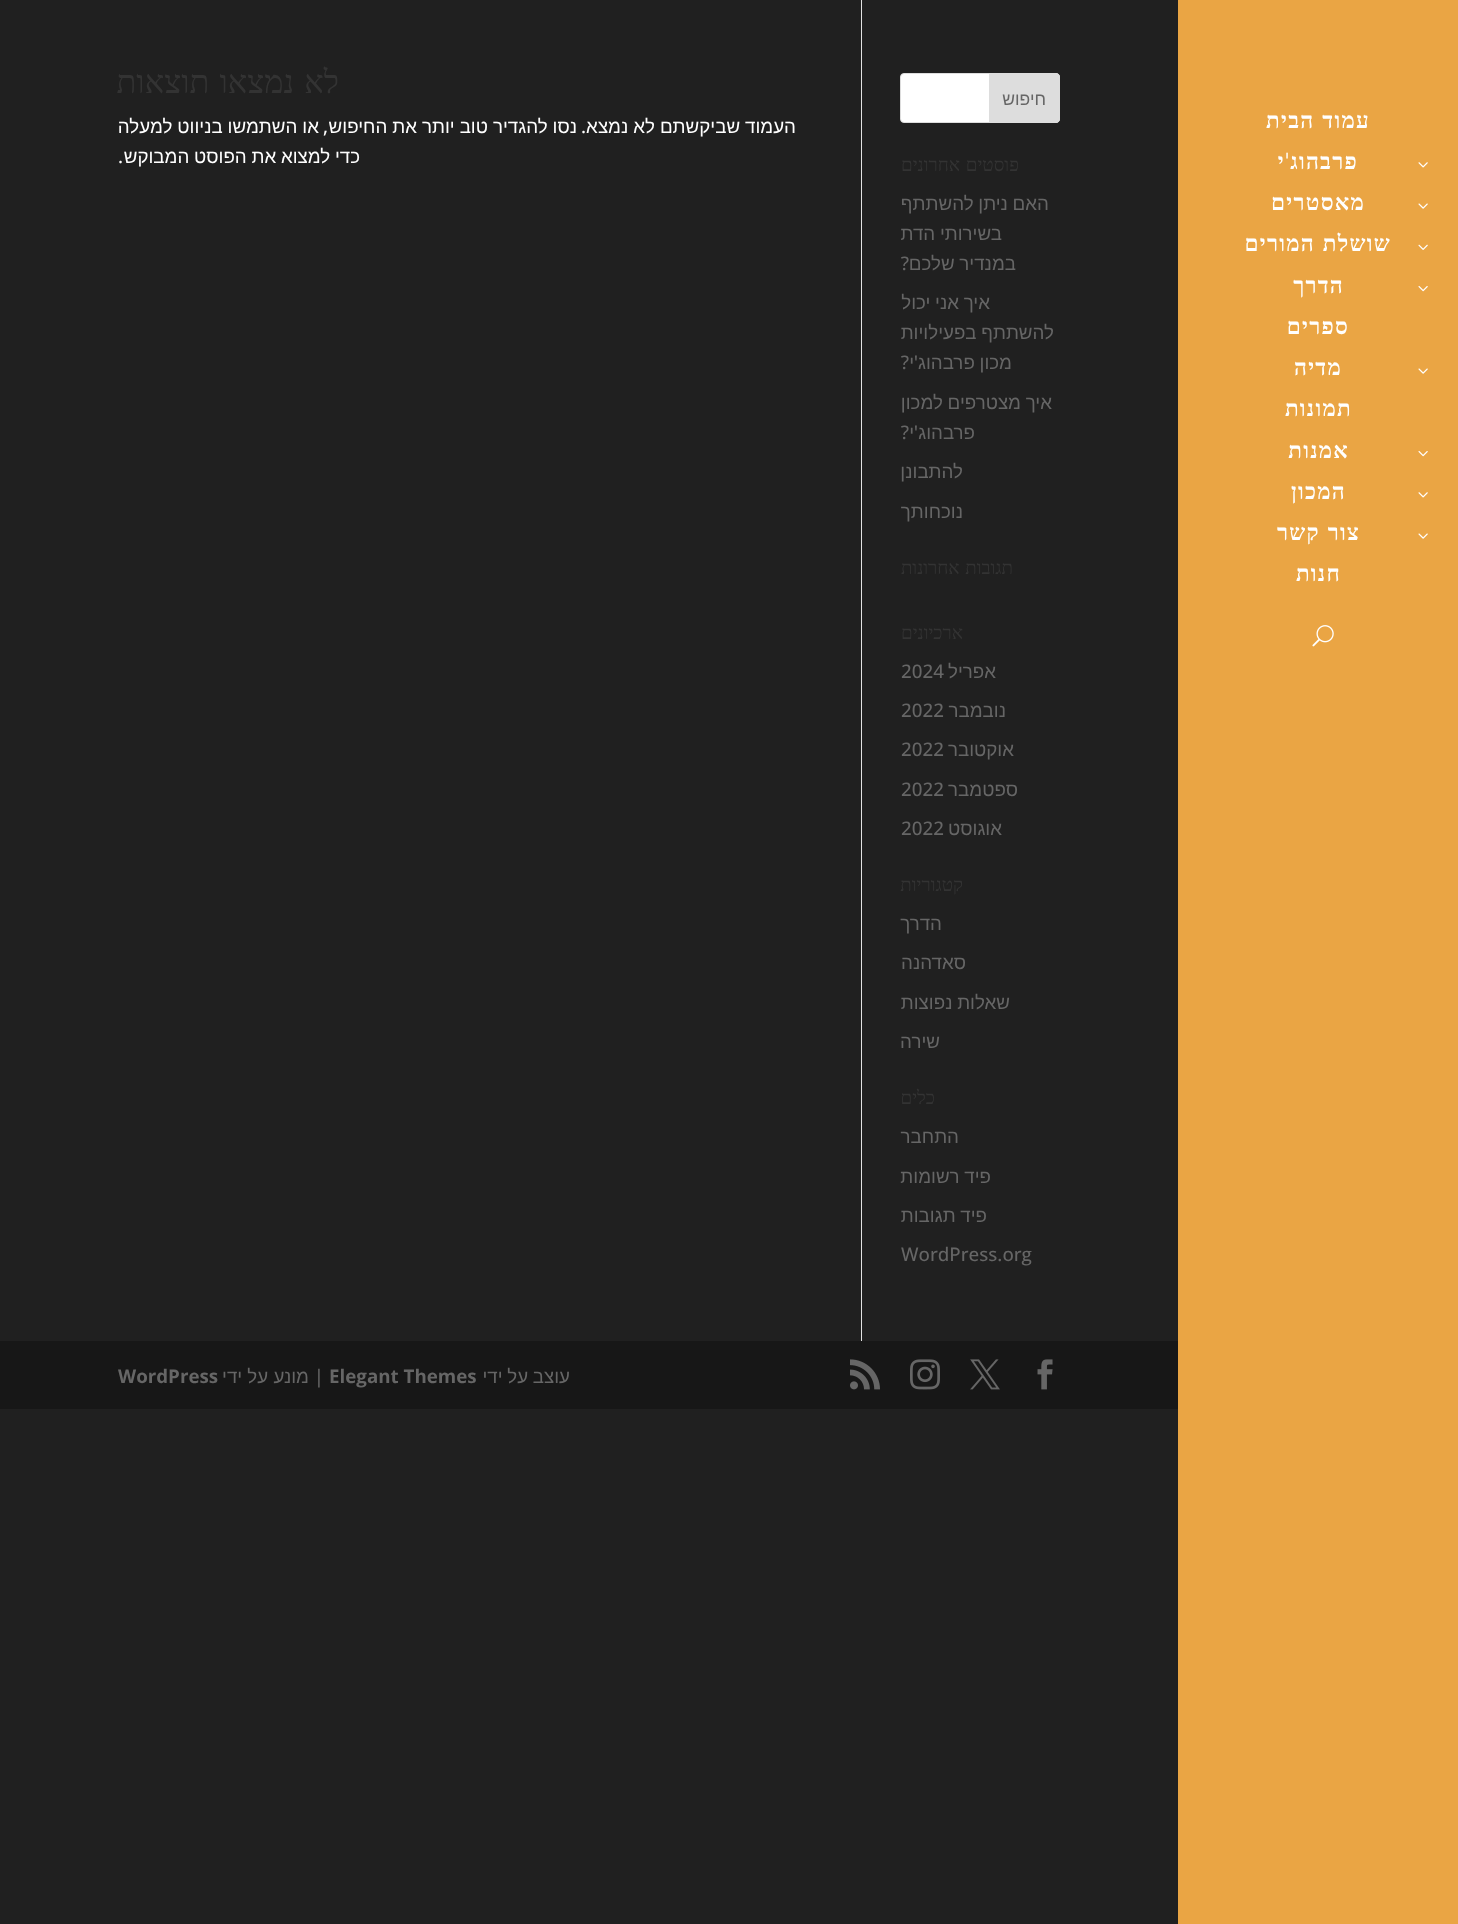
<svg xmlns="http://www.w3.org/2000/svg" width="1458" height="1924">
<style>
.a{font:bold 22.5px Liberation Serif;letter-spacing:1.25px;direction:rtl;fill:#fff}
.b{font:100 22.5px Josefin Slab;letter-spacing:1.25px;direction:rtl;fill:#fff}
.c{font:17.5px Liberation Sans;direction:rtl;fill:#666}
.d{font:18.75px Liberation Serif;direction:rtl;fill:#333}
.e{font:18.75px Liberation Sans;direction:rtl;fill:#666}
.f{font:500 18.75px Open Sans;direction:rtl;fill:#666}
.g{font:500 18.75px Open Sans;fill:#666}
.h{font:32.5px Liberation Serif;direction:rtl;fill:#333}
.i{font:18.75px Liberation Sans;direction:rtl;fill:#fff}
.j{font:500 18.75px Open Sans;direction:rtl;fill:#fff}
.k{font:bold 18.75px Open Sans;fill:#666}
</style>
<rect width="100%" height="100%" fill="#202020"/>
<path fill="#eaa544" d="M1178 0h280v1924H1178z"/>
<image href="1.png" x="1418" y="162" width="10" height="6"/>
<image href="2.png" x="1418" y="203" width="10" height="6"/>
<image href="3.png" x="1418" y="244" width="10" height="6"/>
<image href="4.png" x="1418" y="286" width="10" height="6"/>
<image href="2.png" x="1418" y="368" width="10" height="6"/>
<image href="4.png" x="1418" y="451" width="10" height="6"/>
<image href="1.png" x="1418" y="492" width="10" height="6"/>
<image href="2.png" x="1418" y="533" width="10" height="6"/>
<image href="5.png" x="1312" y="625" width="22" height="22"/>
<path fill="#e2e2e2" d="M861 0h1v1341H861z"/>
<rect fill="#fff" stroke="#ddd" x="900.5" y="73.5" width="159" height="49" rx="3.5"/>
<path fill="#ddd" stroke="#ddd" d="M989.5 73.5h66.5c2 0 3.5 1.5 3.5 3.5v42c0 2-1.5 3.5-3.5 3.5h-66.5z"/>
<path fill="#171717" d="M0 1341h1178v68H0z"/>
<image href="6.png" x="1037" y="1359" width="16" height="31"/>
<image href="7.png" x="970" y="1359" width="30" height="31"/>
<image href="8.png" x="910" y="1359" width="30" height="31"/>
<image href="9.png" x="850" y="1359" width="30" height="31"/>
<text class="a" x="1370" y="128" word-spacing="1">עמוד הבית</text>
<text class="a" x="1358" y="169">פרבהוג</text>
<text class="b" x="1290" y="169">'</text>
<text class="a" x="1285" y="169">י</text>
<text class="a" x="1365" y="210">מאסטרים</text>
<text class="a" x="1391" y="251" word-spacing="1">שושלת המורים</text>
<text class="a" x="1344" y="293">הדרך</text>
<text class="a" x="1349" y="334">ספרים</text>
<text class="a" x="1342" y="375">מדיה</text>
<text class="a" x="1352" y="416">תמונות</text>
<text class="a" x="1349" y="458">אמנות</text>
<text class="a" x="1346" y="499">המכון</text>
<text class="a" x="1360" y="540" word-spacing="1">צור קשר</text>
<text class="a" x="1341" y="581">חנות</text>
<text class="c" x="1046" y="105">חיפוש</text>
<text class="d" x="1019" y="171" word-spacing="1">פוסטים אחרונים</text>
<text class="e" x="1049" y="210" word-spacing="-0.5">האם ניתן להשתתף</text>
<text class="e" x="1002" y="240" word-spacing="-0.5">בשירותי הדת</text>
<text class="e" x="1016" y="270" word-spacing="-0.5">במנדיר שלכם</text>
<text class="f" x="909" y="270">?</text>
<text class="e" x="990" y="309" word-spacing="-0.5">איך אני יכול</text>
<text class="e" x="1054" y="339" word-spacing="-0.5">להשתתף בפעילויות</text>
<text class="e" x="1012" y="369" word-spacing="-0.5">מכון פרבהוג</text>
<text class="f" x="918" y="369">'</text>
<text class="e" x="914" y="369">י</text>
<text class="f" x="909" y="369">?</text>
<text class="e" x="1052" y="409" word-spacing="-0.5">איך מצטרפים למכון</text>
<text class="e" x="975" y="439">פרבהוג</text>
<text class="f" x="918" y="439">'</text>
<text class="e" x="914" y="439">י</text>
<text class="f" x="909" y="439">?</text>
<text class="e" x="963" y="478">להתבונן</text>
<text class="e" x="963" y="518">נוכחותך</text>
<text class="d" x="1013" y="574" word-spacing="1">תגובות אחרונות</text>
<text class="d" x="963" y="639">ארכיונים</text>
<text class="e" x="996" y="678">אפריל</text>
<text class="g" x="901" y="678">2024</text>
<text class="e" x="1006" y="717">נובמבר</text>
<text class="g" x="901" y="717">2022</text>
<text class="e" x="1014" y="756">אוקטובר</text>
<text class="g" x="901" y="756">2022</text>
<text class="e" x="1018" y="796">ספטמבר</text>
<text class="g" x="901" y="796">2022</text>
<text class="e" x="1002" y="835">אוגוסט</text>
<text class="g" x="901" y="835">2022</text>
<text class="d" x="963" y="891">קטגוריות</text>
<text class="e" x="942" y="930">הדרך</text>
<text class="e" x="966" y="969">סאדהנה</text>
<text class="e" x="1010" y="1009" word-spacing="-0.5">שאלות נפוצות</text>
<text class="e" x="940" y="1048">שירה</text>
<text class="d" x="935" y="1104">כלים</text>
<text class="e" x="959" y="1143">התחבר</text>
<text class="e" x="991" y="1183" word-spacing="-0.5">פיד רשומות</text>
<text class="e" x="987" y="1222" word-spacing="-0.5">פיד תגובות</text>
<text class="g" x="901" y="1261">WordPress.org</text>
<text class="h" x="339" y="93" word-spacing="2">לא נמצאו תוצאות</text>
<text class="i" x="796" y="133" word-spacing="-0.25">העמוד שביקשתם לא נמצא</text>
<text class="j" x="586" y="133">.</text>
<text class="i" x="577" y="133" word-spacing="-0.25">נסו להגדיר טוב יותר את החיפוש</text>
<text class="j" x="328" y="133">,</text>
<text class="i" x="319" y="133" word-spacing="-0.25">או השתמשו בניווט למעלה</text>
<text class="i" x="360" y="163" word-spacing="-0.5">כדי למצוא את הפוסט המבוקש</text>
<text class="j" x="123" y="163">.</text>
<text class="e" x="570" y="1383" word-spacing="-0.5">עוצב על ידי</text>
<text class="k" x="329" y="1383">Elegant Themes</text>
<text class="f" x="324" y="1383">|</text>
<text class="e" x="309" y="1383">מונע על ידי</text>
<text class="k" x="118" y="1383">WordPress</text>
</svg>
